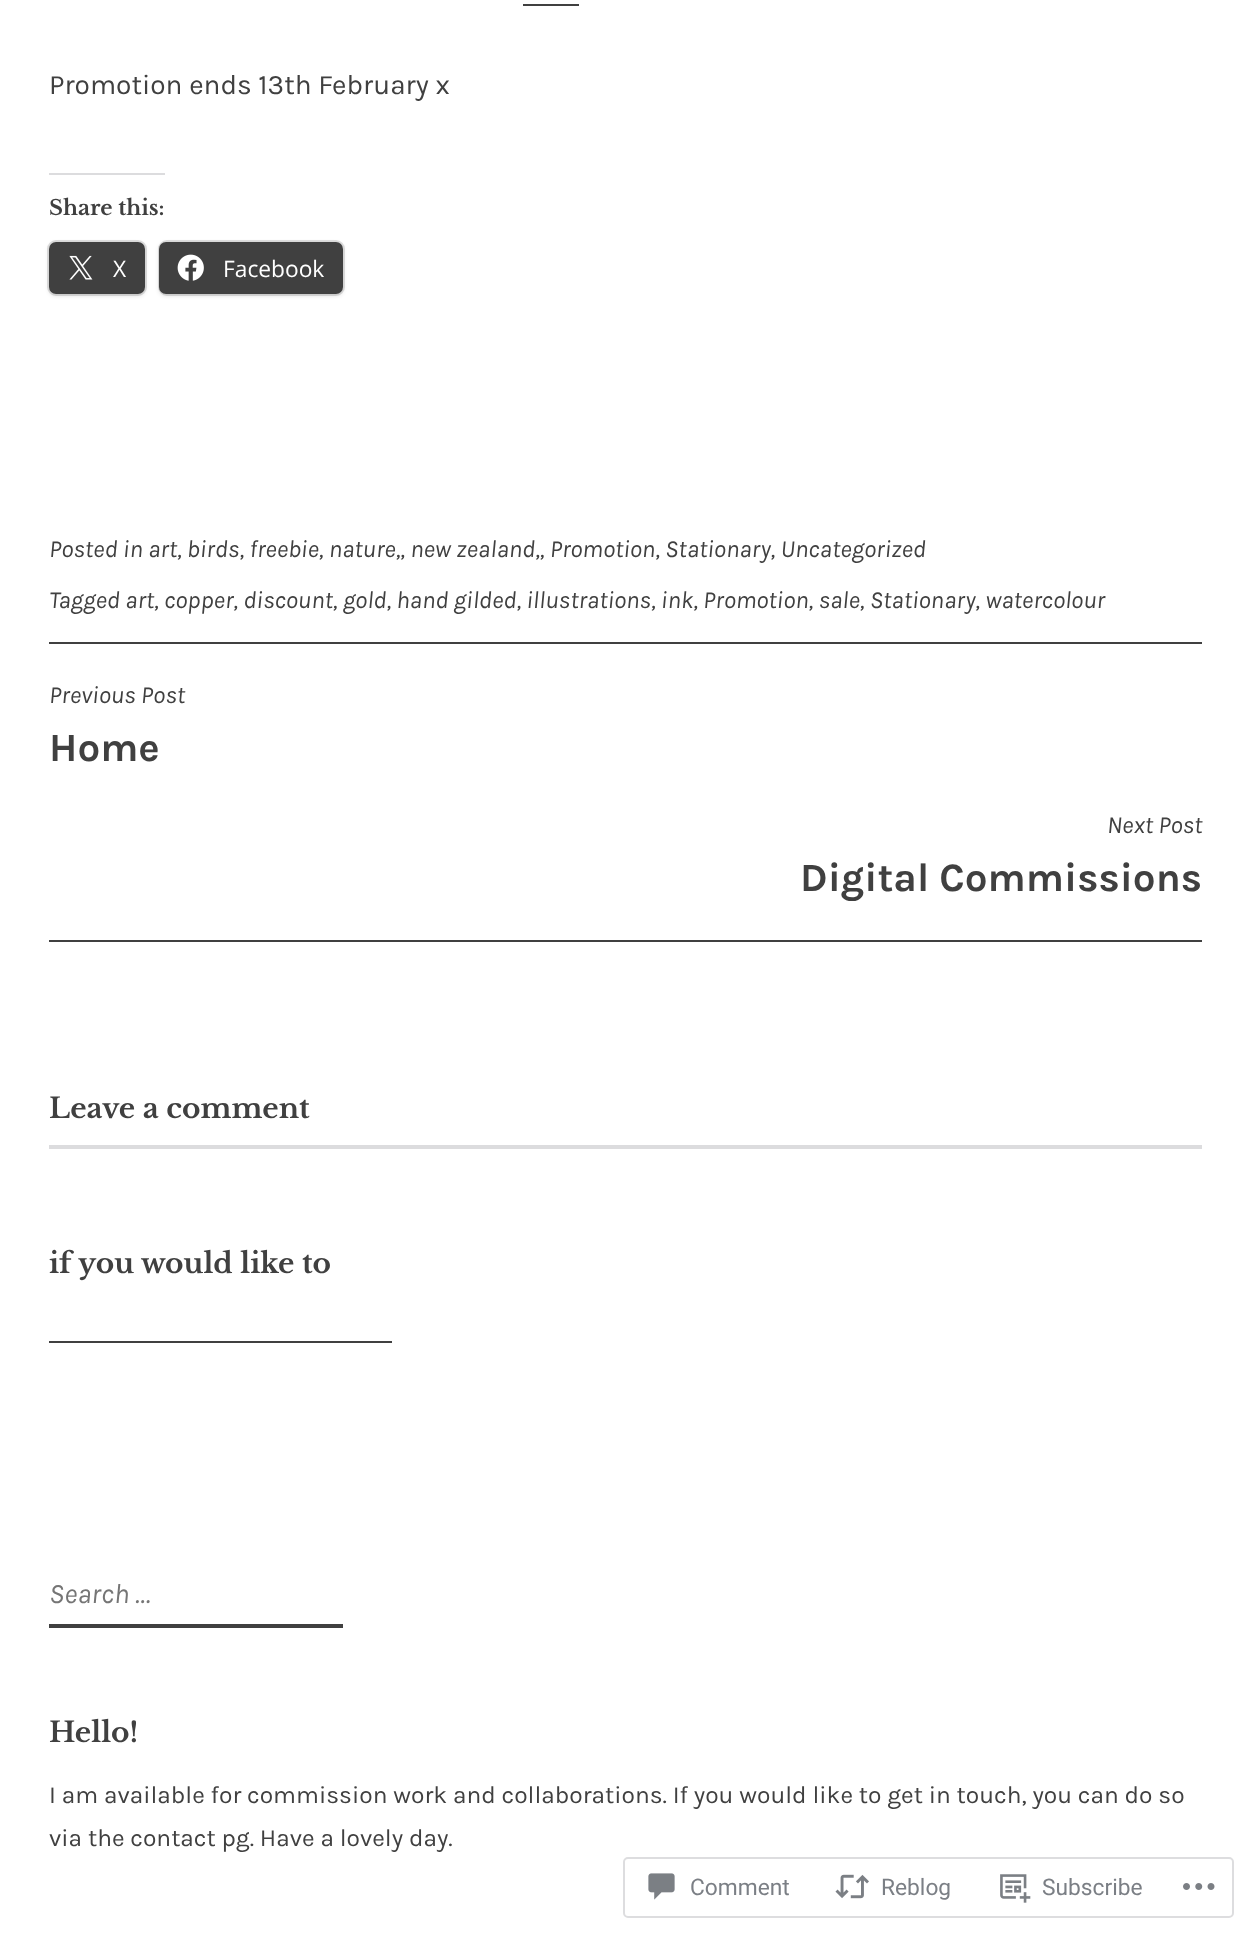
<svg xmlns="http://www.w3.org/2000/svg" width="1250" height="1935">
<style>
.a{font:28px Karla;fill:#404040}
.b{font:bold 21px Libre Baskerville;fill:#404040}
.c{font:22.75px Open Sans;fill:#fff}
.d{font:italic 24.5px Karla;fill:#404040}
.e{font:bold 40.25px Karla;fill:#404040}
.f{font:bold 28px Libre Baskerville;fill:#404040}
.g{font:italic 28px Karla;fill:#757575}
.h{font:24.5px Karla;fill:#404040}
.i{font:22.75px Roboto;fill:#7b7f85}
</style>
<rect width="100%" height="100%" fill="#fff"/>
<path fill="#404040" d="M523 4h56v2H523z"/>
<path fill="#dcdcde" d="M49 173h116v2H49z"/>
<rect fill="none" stroke="#e0e0e0" stroke-width="2" x="48" y="241" width="98" height="54" rx="8"/>
<rect fill="#0000001f" filter="blur(2px)" x="49" y="243" width="96" height="53" rx="7"/>
<rect fill="#404040" x="49" y="242" width="96" height="52" rx="7"/>
<image href="1.png" x="69" y="255" width="24" height="25"/>
<rect fill="none" stroke="#e0e0e0" stroke-width="2" x="159" y="241" width="185" height="54" rx="8"/>
<rect fill="#0000001f" filter="blur(2px)" x="159" y="243" width="184" height="53" rx="7"/>
<rect fill="#404040" x="159" y="242" width="184" height="52" rx="7"/>
<image href="2.png" x="177" y="254" width="27" height="27"/>
<path fill="#404040" d="M49 642h1153v2H49z"/>
<path fill="#404040" d="M49 940h1153v2H49z"/>
<path fill="#dcdcde" d="M49 1145h1153v4H49z"/>
<path fill="#404040" d="M49 1341h343v2H49z"/>
<path fill="#404040" d="M49 1624h294v4H49z"/>
<rect fill="none" stroke="#dddddf" stroke-width="2" x="624" y="1858" width="609" height="59" rx="4"/>
<image href="3.png" x="648" y="1873" width="27" height="27"/>
<image href="4.png" x="835" y="1874" width="34" height="25"/>
<image href="5.png" x="1000" y="1874" width="31" height="29"/>
<image href="6.png" x="1183" y="1883" width="32" height="7"/>
<text class="a" x="49" y="94">Promotion ends 13th February x</text>
<text class="b" x="49" y="215">Share this:</text>
<text class="c" x="113" y="277">X</text>
<text class="c" x="223" y="277">Facebook</text>
<text class="d" x="49" y="557">Posted in art, birds, freebie, nature,, new zealand,, Promotion, Stationary, Uncategorized</text>
<text class="d" x="49" y="608">Tagged art, copper, discount, gold, hand gilded, illustrations, ink, Promotion, sale, Stationary, watercolour</text>
<text class="d" x="49" y="703">Previous Post</text>
<text class="e" x="49" y="761">Home</text>
<text class="d" x="1107" y="833">Next Post</text>
<text class="e" x="800" y="891">Digital Commissions</text>
<text class="f" x="49" y="1118">Leave a comment</text>
<text class="f" x="49" y="1273">if you would like to</text>
<text class="g" x="49" y="1603">Search …</text>
<text class="f" x="49" y="1742">Hello!</text>
<text class="h" x="49" y="1803">I am available for commission work and collaborations. If you would like to get in touch, you can do so</text>
<text class="h" x="49" y="1846">via the contact pg. Have a lovely day.</text>
<text class="i" x="690" y="1895">Comment</text>
<text class="i" x="881" y="1895">Reblog</text>
<text class="i" x="1042" y="1895">Subscribe</text>
</svg>
